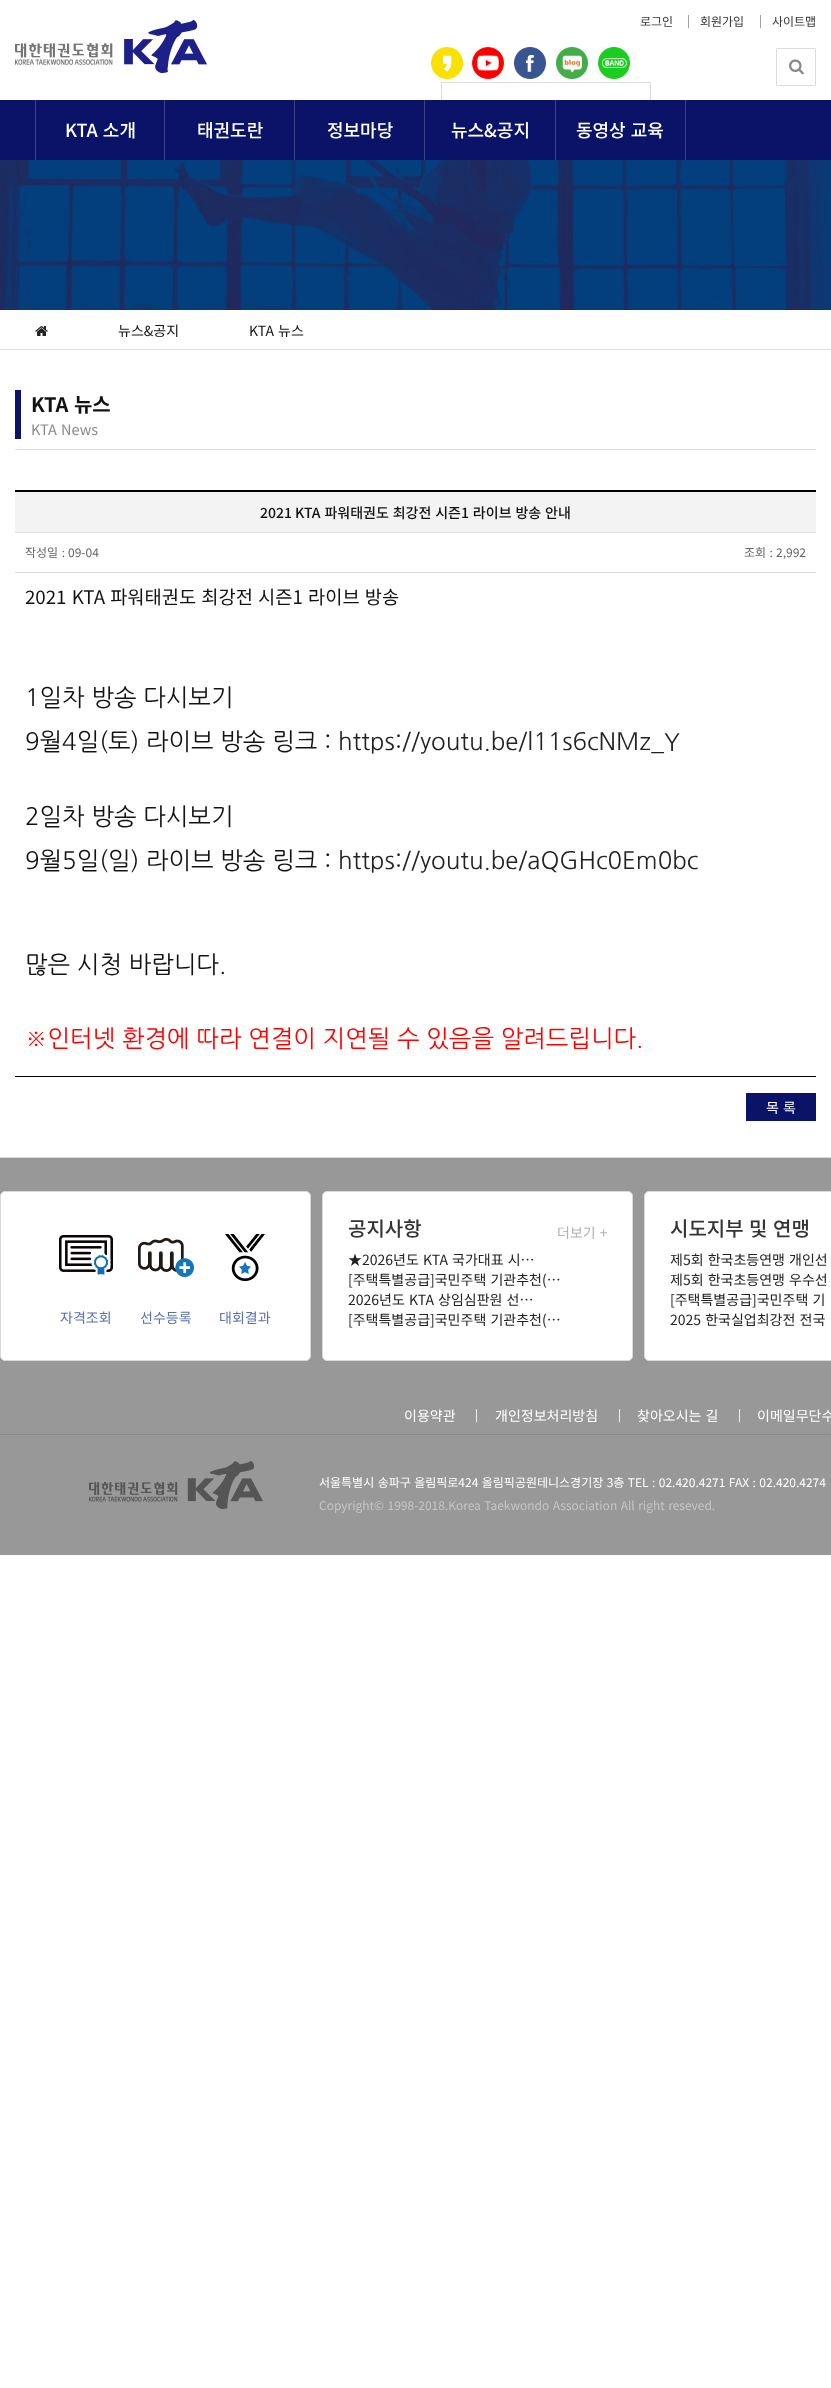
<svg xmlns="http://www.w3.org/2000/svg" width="831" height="2388">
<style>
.a{font:12px Noto Sans KR;fill:#343434}
.b{font:12px Noto Sans KR;fill:#898989}
.c{font:500 18px Noto Sans KR;fill:#fff}
.d{font:14px Noto Sans KR;fill:#121212}
.e{font:bold 20px Noto Sans KR;fill:#121212}
.f{font:14.5px Noto Sans KR;fill:#898989}
.g{font:500 14px Noto Sans KR;fill:#121212}
.h{font:12px Noto Sans KR;fill:#666}
.i{font:18.7px Noto Sans KR;fill:#121212}
.j{font:24px NanumGothic;fill:#121212}
.k{font:24px NanumGothic;fill:#222}
.l{font:24px NanumGothic;fill:#f00}
.m{font:14px Noto Sans KR;fill:#fff}
.n{font:14px Noto Sans KR;fill:#5971b7}
.o{font:500 20px Noto Sans KR;fill:#343434}
.p{font:14px Noto Sans KR;fill:#b2b2b2}
.q{font:14px Noto Sans KR;fill:#222}
.r{font:12px Noto Sans KR;fill:#fff}
.s{font:12px Noto Sans KR;fill:#c6c6c6}
</style>
<rect width="100%" height="100%" fill="#fff"/>
<image href="1.png" x="15" y="20" width="192" height="53"/>
<image href="2.png" x="431" y="47" width="32" height="32"/>
<image href="3.png" x="472" y="47" width="32" height="32"/>
<image href="4.png" x="514" y="47" width="32" height="32"/>
<image href="5.png" x="556" y="47" width="32" height="32"/>
<image href="6.png" x="598" y="47" width="32" height="32"/>
<path fill="#0a1367" d="M0 100h831v60H0z"/>
<path fill="none" stroke="#dcdcdc" d="M441.5 82.5h209v37H441.5z"/>
<path fill="none" stroke="#dcdcdc" d="M776.5 48.5h39v37H776.5z"/>
<image href="7.png" x="789" y="59" width="15" height="16"/>
<path fill="#3b4285" d="M164 100h1v60H164z"/>
<path fill="#3b4285" d="M35 100h1v60H35z"/>
<path fill="#3b4285" d="M294 100h1v60H294z"/>
<path fill="#3b4285" d="M424 100h1v60H424z"/>
<path fill="#0a1367" d="M441 100h114v20H441z"/>
<path fill="#3b4285" d="M555 100h1v60H555z"/>
<path fill="#0a1367" d="M556 100h95v20H556z"/>
<path fill="#3b4285" d="M685 100h1v60H685z"/>
<image href="8.png" x="0" y="160" width="831" height="150"/>
<path fill="#ddd" d="M0 349h831v1H0z"/>
<image href="9.png" x="35" y="326" width="13" height="10"/>
<path fill="#ddd" d="M15 449h801v1H15z"/>
<path fill="#0a1367" d="M15 390h6v49H15z"/>
<path fill="#f3f3f3" d="M15 492h801v40H15z"/>
<path fill="#000" d="M15 490h801v2H15z"/>
<path fill="#ddd" d="M15 532h801v1H15z"/>
<path fill="#ddd" d="M15 572h801v1H15z"/>
<path fill="#000" d="M15 1076h801v1H15z"/>
<path fill="#0a1367" d="M746 1093h70v28H746z"/>
<path fill="#989898" d="M0 1158h831v397H0z"/>
<path fill="#d9d9d9" d="M0 1157h831v1H0z"/>
<rect fill="#fff" stroke="#d9d9d9" x="0.5" y="1191.5" width="310" height="169" rx="4.5"/>
<image href="10.png" x="59" y="1235" width="54" height="40"/>
<image href="11.png" x="138" y="1238" width="60" height="43"/>
<image href="12.png" x="225" y="1234" width="40" height="47"/>
<rect fill="#fff" stroke="#d9d9d9" x="322.5" y="1191.5" width="310" height="169" rx="4.5"/>
<rect fill="#fff" stroke="#d9d9d9" x="644.5" y="1191.5" width="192" height="169" rx="4.5"/>
<path fill="#8a8a8a" d="M0 1434h831v1H0z"/>
<image href="13.png" x="89" y="1461" width="174" height="48"/>
<text class="a" x="640" y="26">로그인</text>
<text class="b" x="687" y="25">|</text>
<text class="a" x="700" y="26">회원가입</text>
<text class="b" x="759" y="25">|</text>
<text class="a" x="772" y="26">사이트맵</text>
<text class="c" x="65" y="137" word-spacing="1">KTA 소개</text>
<text class="c" x="197" y="137">태권도란</text>
<text class="c" x="327" y="137">정보마당</text>
<text class="c" x="451" y="137">뉴스&amp;공지</text>
<text class="c" x="576" y="137" word-spacing="1">동영상 교육</text>
<text class="d" x="118" y="336">뉴스&amp;공지</text>
<text class="d" x="249" y="336" word-spacing="1">KTA 뉴스</text>
<text class="e" x="31" y="412" word-spacing="1">KTA 뉴스</text>
<text class="f" x="31" y="435" word-spacing="1">KTA News</text>
<text class="g" x="260" y="518">2021</text>
<text class="g" x="295" y="518" word-spacing="0.75">KTA 파워태권도 최강전 시즌1 라이브 방송 안내</text>
<text class="h" x="25" y="557" word-spacing="1">작성일 :</text>
<text class="h" x="68" y="557">09-04</text>
<text class="h" x="744" y="557" word-spacing="0.75">조회 :</text>
<text class="h" x="776" y="557">2,992</text>
<text class="i" x="25" y="604" word-spacing="1">2021 KTA 파워태권도 최강전 시즌1 라이브 방송</text>
<text class="j" x="25" y="706">1일차 방송 다시보기</text>
<text class="j" x="25" y="750">9월4일(토) 라이브 방송 링크 :</text>
<text class="k" x="338" y="750">https://youtu.be/l11s6cNMz_Y</text>
<text class="j" x="25" y="825">2일차 방송 다시보기</text>
<text class="j" x="25" y="869">9월5일(일) 라이브 방송 링크 :</text>
<text class="k" x="338" y="869">https://youtu.be/aQGHc0Em0bc</text>
<text class="j" x="25" y="973">많은 시청 바랍니다.</text>
<text class="l" x="25" y="1047">※인터넷 환경에 따라 연결이 지연될 수 있음을 알려드립니다.</text>
<text class="m" x="766" y="1113" word-spacing="1">목 록</text>
<text class="n" x="60" y="1323">자격조회</text>
<text class="n" x="140" y="1323">선수등록</text>
<text class="n" x="219" y="1323">대회결과</text>
<text class="o" x="348" y="1236">공지사항</text>
<text class="p" x="557" y="1238" word-spacing="1">더보기 +</text>
<text class="q" x="348" y="1265" word-spacing="1">★2026년도 KTA 국가대표 시…</text>
<text class="q" x="348" y="1285" word-spacing="1">[주택특별공급]국민주택 기관추천(…</text>
<text class="q" x="348" y="1305" word-spacing="1">2026년도 KTA 상임심판원 선…</text>
<text class="q" x="348" y="1325" word-spacing="1">[주택특별공급]국민주택 기관추천(…</text>
<text class="o" x="670" y="1236" word-spacing="1">시도지부 및 연맹</text>
<text class="q" x="670" y="1265" word-spacing="1">제5회 한국초등연맹 개인선</text>
<text class="q" x="670" y="1285" word-spacing="1">제5회 한국초등연맹 우수선</text>
<text class="q" x="670" y="1305" word-spacing="1">[주택특별공급]국민주택 기</text>
<text class="q" x="670" y="1325" word-spacing="1">2025 한국실업최강전 전국</text>
<text class="m" x="404" y="1421">이용약관</text>
<text class="r" x="475" y="1419">|</text>
<text class="m" x="495" y="1421">개인정보처리방침</text>
<text class="r" x="618" y="1419">|</text>
<text class="m" x="637" y="1421" word-spacing="1">찾아오시는 길</text>
<text class="r" x="738" y="1419">|</text>
<text class="m" x="757" y="1421">이메일무단수</text>
<text class="r" x="319" y="1487" word-spacing="0.75">서울특별시 송파구 올림픽로424 올림픽공원테니스경기장 3층 TEL : 02.420.4271 FAX : 02.420.4274</text>
<text class="s" x="319" y="1510" word-spacing="0.75">Copyright© 1998-2018.Korea Taekwondo Association All right reseved.</text>
</svg>
